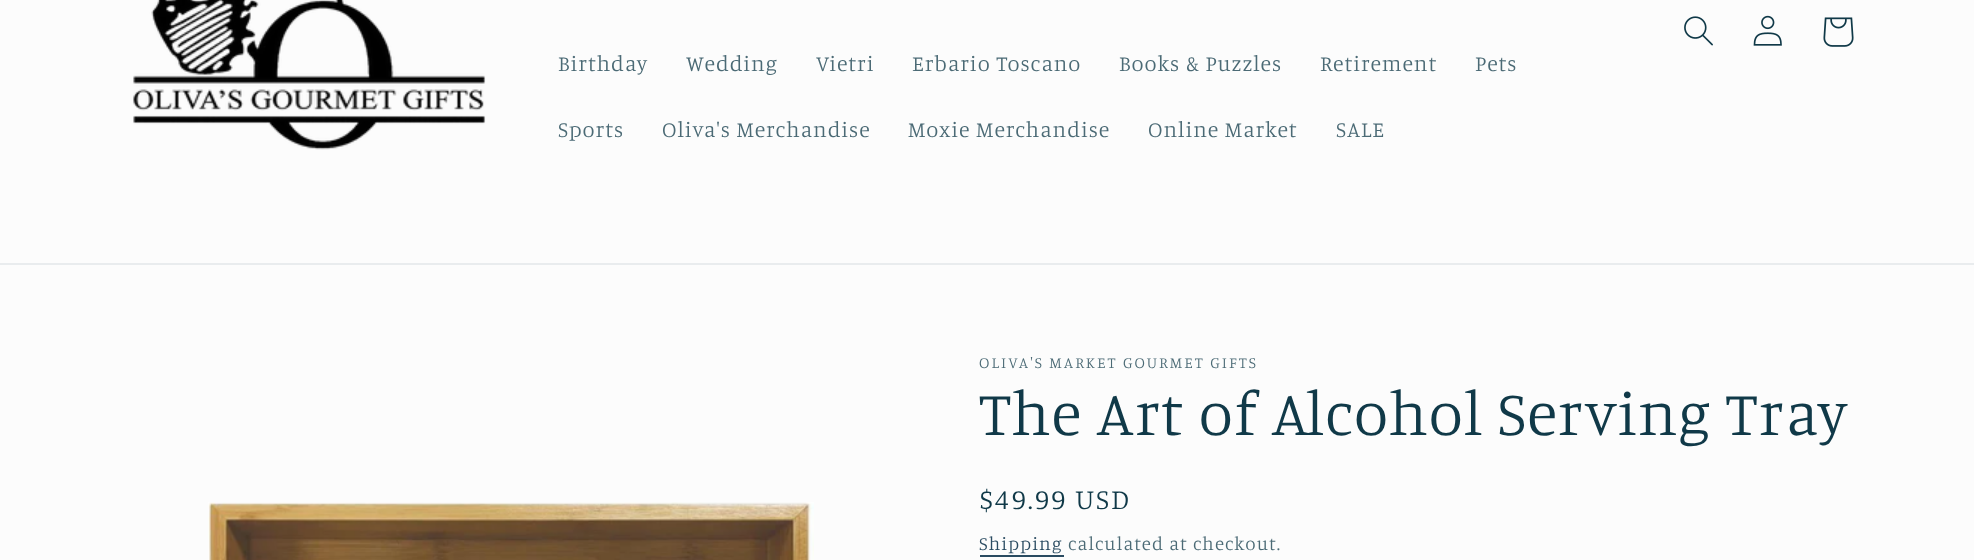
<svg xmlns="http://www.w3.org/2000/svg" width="1974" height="560">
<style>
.a{font:300 22px Manuale;letter-spacing:0.95px;fill:#4b6a75}
.b{font:300 15.75px Manuale;letter-spacing:2.05px;fill:#4b6a75}
.c{font:300 63px Manuale;letter-spacing:0.95px;fill:#103948}
.d{font:300 28.5px Manuale;letter-spacing:2.05px;fill:#103948}
.e{font:300 18.9px Manuale;letter-spacing:1.1px;fill:#2a4b61}
.f{font:300 18.9px Manuale;letter-spacing:1.1px;fill:#4b6a75}
</style>
<rect width="100%" height="100%" fill="#fcfcfc"/>
<path fill="#e9ecee" d="M0 263h1974v2H0z"/>
<image href="1.png" x="133" y="0" width="353" height="150"/>
<image href="2.png" x="1684" y="16" width="29" height="30"/>
<image href="3.png" x="1753" y="15" width="29" height="31"/>
<image href="4.png" x="1823" y="17" width="31" height="30"/>
<image href="5.png" x="208" y="502" width="606" height="58"/>
<path fill="#2a4b61" d="M980 555h84v2H980z"/>
<text class="a" x="558" y="71">Birthday</text>
<text class="a" x="686" y="71">Wedding</text>
<text class="a" x="816" y="71">Vietri</text>
<text class="a" x="912" y="71">Erbario Toscano</text>
<text class="a" x="1119" y="71">Books &amp; Puzzles</text>
<text class="a" x="1320" y="71">Retirement</text>
<text class="a" x="1475" y="71">Pets</text>
<text class="a" x="558" y="137">Sports</text>
<text class="a" x="662" y="137">Oliva's Merchandise</text>
<text class="a" x="908" y="137">Moxie Merchandise</text>
<text class="a" x="1148" y="137">Online Market</text>
<text class="a" x="1336" y="137">SALE</text>
<text class="b" x="979" y="368">OLIVA'S MARKET GOURMET GIFTS</text>
<text class="c" x="979" y="435">The Art of Alcohol Serving Tray</text>
<text class="d" x="979" y="509">$49.99 USD</text>
<text class="e" x="979" y="550">Shipping</text>
<text class="f" x="1068" y="550">calculated at checkout.</text>
</svg>
